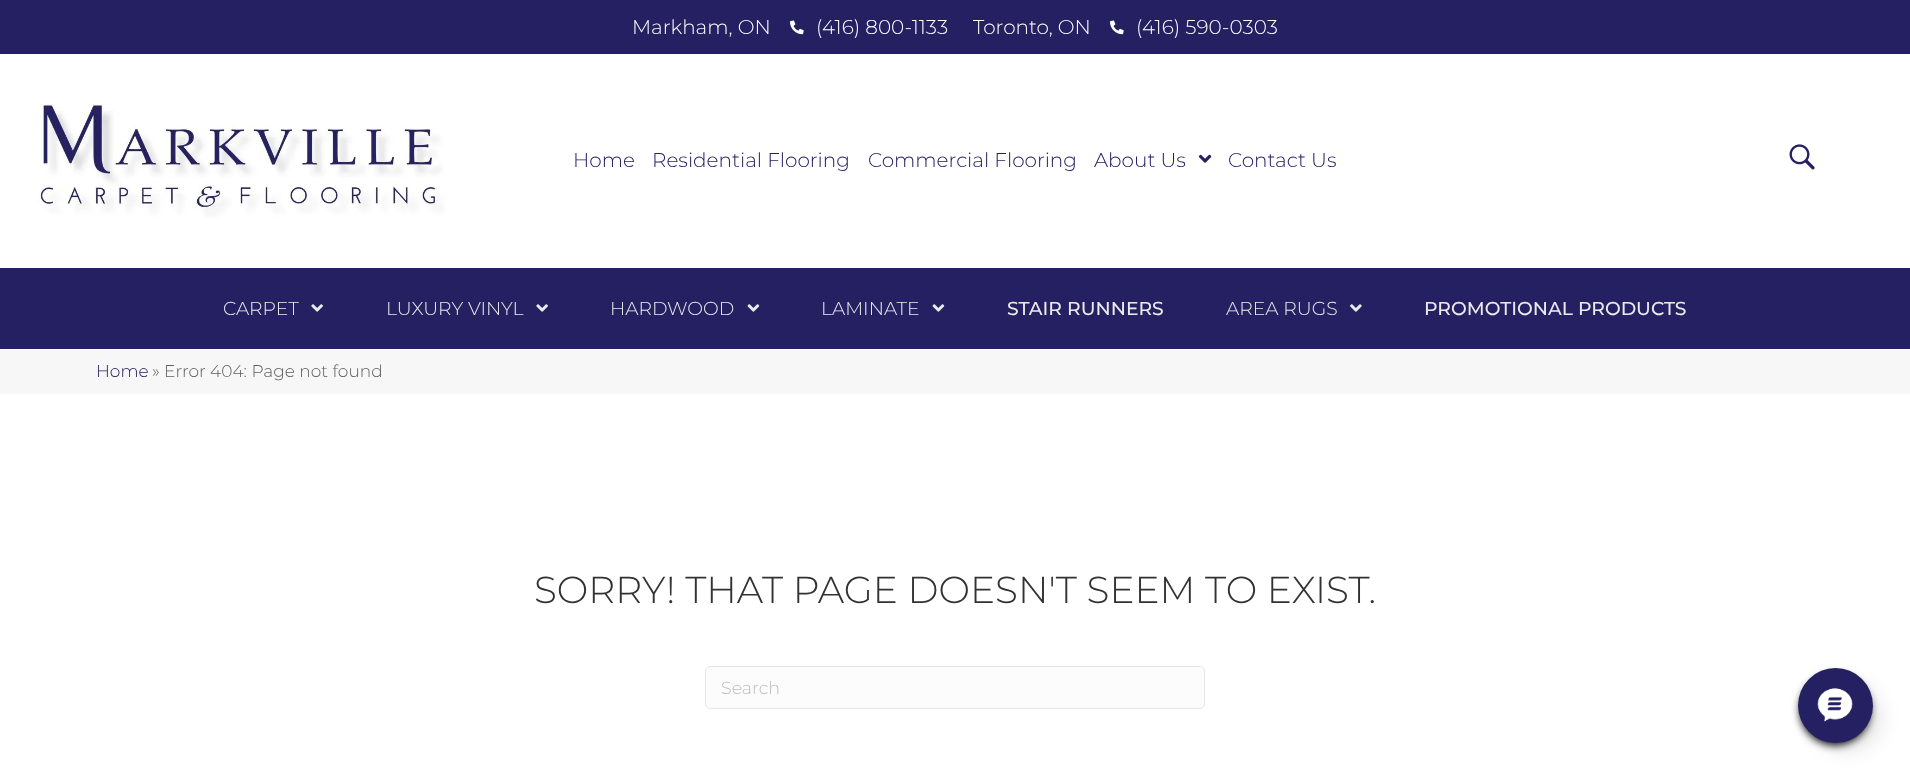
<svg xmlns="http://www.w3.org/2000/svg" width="1910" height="779">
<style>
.a{font:300 20px Montserrat;fill:#fff}
.b{font:300 20px Montserrat;fill:#242062}
.c{font:300 18.75px Montserrat;fill:#eaeaea}
.d{font:500 18.75px Montserrat;fill:#eaeaea}
.e{font:300 17px Montserrat;fill:#242062}
.f{font:300 17px Montserrat;fill:#5e5e5e}
.g{font:300 37.5px Montserrat;fill:#323232}
.h{font:300 17.5px Montserrat;fill:#bdbdbd}
</style>
<rect width="100%" height="100%" fill="#fff"/>
<path fill="#252062" d="M0 0h1910v54H0z"/>
<image href="1.png" x="790" y="20" width="14" height="15"/>
<image href="1.png" x="1110" y="20" width="14" height="15"/>
<image href="2.png" x="38" y="104" width="407" height="114"/>
<image href="3.png" x="1198" y="154" width="14" height="9"/>
<image href="4.png" x="1789" y="144" width="26" height="26"/>
<path fill="#252062" d="M0 268h1910v81H0z"/>
<image href="5.png" x="311" y="304" width="12" height="8"/>
<image href="5.png" x="536" y="304" width="12" height="8"/>
<image href="6.png" x="747" y="304" width="13" height="8"/>
<image href="6.png" x="932" y="304" width="13" height="8"/>
<image href="7.png" x="1350" y="304" width="12" height="8"/>
<path fill="#f7f7f7" d="M0 350h1910v44H0z"/>
<rect fill="#fcfcfc" stroke="#e6e6e6" x="705.5" y="666.5" width="499" height="42" rx="4.5"/>
<rect fill="#000" filter="blur(4px)" x="1800" y="675" width="70" height="70" rx="35"/>
<rect fill="#0000001a" filter="blur(9.5px)" x="1814" y="684" width="67" height="67" rx="33.5"/>
<circle fill="#252062" cx="1835.5" cy="705.5" r="37.5"/>
<image href="8.png" x="1817" y="688" width="36" height="34"/>
<text class="a" x="632" y="34">Markham, ON</text>
<text class="a" x="816" y="34">(416) 800-1133</text>
<text class="a" x="973" y="34">Toronto, ON</text>
<text class="a" x="1136" y="34">(416) 590-0303</text>
<text class="b" x="573" y="167">Home</text>
<text class="b" x="652" y="167">Residential Flooring</text>
<text class="b" x="868" y="167">Commercial Flooring</text>
<text class="b" x="1094" y="167">About Us</text>
<text class="b" x="1228" y="167">Contact Us</text>
<text class="c" x="223" y="315">CARPET</text>
<text class="c" x="386" y="315">LUXURY VINYL</text>
<text class="c" x="610" y="315">HARDWOOD</text>
<text class="c" x="821" y="315">LAMINATE</text>
<text class="d" x="1007" y="315">STAIR RUNNERS</text>
<text class="c" x="1226" y="315">AREA RUGS</text>
<text class="d" x="1424" y="315">PROMOTIONAL PRODUCTS</text>
<text class="e" x="96" y="377">Home</text>
<text class="f" x="152" y="377">» Error 404: Page not found</text>
<text class="g" x="534" y="603">SORRY! THAT PAGE DOESN'T SEEM TO EXIST.</text>
<text class="h" x="721" y="694">Search</text>
</svg>
